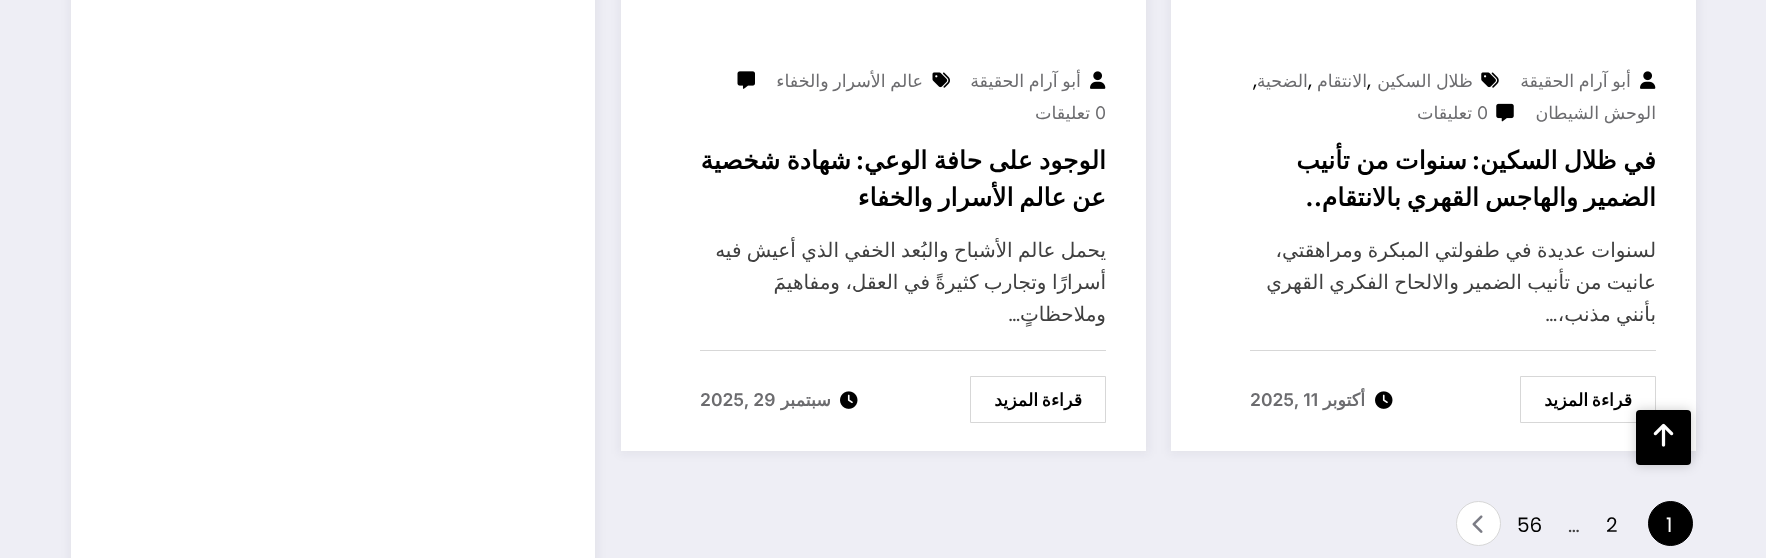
<svg xmlns="http://www.w3.org/2000/svg" width="1766" height="558">
<style>
.a{font:17.5px DejaVu Sans;direction:rtl;fill:#6c6c6f}
.b{font:20px Poppins;fill:#000}
.c{font:17.5px Inter;fill:#6c6c6f}
.d{font:bold 25px DejaVu Sans;direction:rtl;fill:#000}
.e{font:bold 25px Inter;direction:rtl;fill:#000}
.f{font:20px DejaVu Sans;direction:rtl;fill:#404040}
.g{font:20px Poppins;direction:rtl;fill:#404040}
.h{font:bold 17.5px DejaVu Sans;direction:rtl;fill:#000}
.i{font:bold 17.5px DejaVu Sans;direction:rtl;fill:#6c6c6f}
.j{font:600 17.5px Inter;fill:#6c6c6f}
.k{font:20px Poppins;fill:#fff}
.l{font:20px Poppins;fill:#404040}
</style>
<rect width="100%" height="100%" fill="#eeeef5"/>
<path fill="#1717230d" filter="blur(5px)" d="M1169 -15h530v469H1169z"/>
<path fill="#fff" d="M1171 0h525v451H1171z"/>
<path fill="#d7d7d7" d="M1250 350h406v1H1250z"/>
<image href="1.png" x="1640" y="71" width="16" height="18"/>
<image href="2.png" x="1481" y="72" width="18" height="16"/>
<image href="3.png" x="1496" y="103" width="18" height="19"/>
<path fill="none" stroke="#d7d7d7" d="M1520.5 376.5h135v46H1520.5z"/>
<image href="4.png" x="1375" y="391" width="18" height="18"/>
<path fill="#1717230d" filter="blur(5px)" d="M619 -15h530v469H619z"/>
<path fill="#fff" d="M621 0h525v451H621z"/>
<path fill="#d7d7d7" d="M700 350h406v1H700z"/>
<image href="1.png" x="1090" y="71" width="16" height="18"/>
<image href="5.png" x="932" y="72" width="18" height="16"/>
<image href="6.png" x="737" y="71" width="18" height="18"/>
<path fill="none" stroke="#d7d7d7" d="M970.5 376.5h135v46H970.5z"/>
<image href="4.png" x="840" y="391" width="18" height="18"/>
<circle fill="#000" stroke="#000" cx="1670.5" cy="523.5" r="22"/>
<circle fill="#fff" stroke="#d7d7d7" cx="1478.5" cy="523.5" r="22"/>
<image href="7.png" x="1472" y="515" width="11" height="18"/>
<rect fill="#1717230d" filter="blur(5px)" x="69" y="-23" width="529" height="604" rx="8"/>
<path fill="#fff" d="M71 0h524v558H71z"/>
<rect fill="#00000033" filter="blur(6px)" x="1636" y="410" width="55" height="55" rx="4"/>
<rect fill="#000" x="1636" y="410" width="55" height="55" rx="4"/>
<image href="8.png" x="1653" y="423" width="21" height="24"/>
<text class="a" x="1631" y="87" word-spacing="-1">أبو آرام الحقيقة</text>
<text class="a" x="1473" y="87" word-spacing="-1">ظلال السكين</text>
<text class="b" x="1367" y="87">,</text>
<text class="a" x="1367" y="87">الانتقام</text>
<text class="b" x="1308" y="87">,</text>
<text class="a" x="1308" y="87">الضحية</text>
<text class="b" x="1253" y="87">,</text>
<text class="a" x="1656" y="119" word-spacing="-1">الوحش الشيطان</text>
<text class="c" x="1477" y="119">0</text>
<text class="a" x="1472" y="119">تعليقات</text>
<text class="d" x="1656" y="169" word-spacing="-1.5">في ظلال السكين</text>
<text class="e" x="1480" y="169">:</text>
<text class="d" x="1467" y="169" word-spacing="-1.5">سنوات من تأنيب</text>
<text class="d" x="1656" y="206" word-spacing="-2">الضمير والهاجس القهري بالانتقام</text>
<text class="e" x="1322" y="206">..</text>
<text class="f" x="1656" y="257" word-spacing="-1">لسنوات عديدة في طفولتي المبكرة ومراهقتي،</text>
<text class="f" x="1656" y="289" word-spacing="-1">عانيت من تأنيب الضمير والالحاح الفكري القهري</text>
<text class="f" x="1656" y="321" word-spacing="-1">بأنني مذنب،</text>
<text class="g" x="1557" y="321">…</text>
<text class="h" x="1632" y="406" word-spacing="-2">قراءة المزيد</text>
<text class="i" x="1365" y="406">أكتوبر</text>
<text class="j" x="1250" y="406">2025, 11</text>
<text class="a" x="1081" y="87" word-spacing="-1">أبو آرام الحقيقة</text>
<text class="a" x="923" y="87" word-spacing="-1">عالم الأسرار والخفاء</text>
<text class="c" x="1095" y="119">0</text>
<text class="a" x="1090" y="119">تعليقات</text>
<text class="d" x="1106" y="169" word-spacing="-1.5">الوجود على حافة الوعي</text>
<text class="e" x="864" y="169">:</text>
<text class="d" x="851" y="169" word-spacing="-1.5">شهادة شخصية</text>
<text class="d" x="1106" y="206" word-spacing="-2">عن عالم الأسرار والخفاء</text>
<text class="f" x="1106" y="257" word-spacing="-1">يحمل عالم الأشباح والبُعد الخفي الذي أعيش فيه</text>
<text class="f" x="1106" y="289" word-spacing="-1">أسرارًا وتجارب كثيرةً في العقل، ومفاهيمَ</text>
<text class="f" x="1106" y="321">وملاحظاتٍ</text>
<text class="g" x="1020" y="321">…</text>
<text class="h" x="1082" y="406" word-spacing="-2">قراءة المزيد</text>
<text class="i" x="831" y="406">سبتمبر</text>
<text class="j" x="700" y="406">2025, 29</text>
<text class="k" x="1666" y="532">1</text>
<text class="b" x="1606" y="532">2</text>
<text class="l" x="1568" y="532">…</text>
<text class="b" x="1517" y="532">56</text>
</svg>
